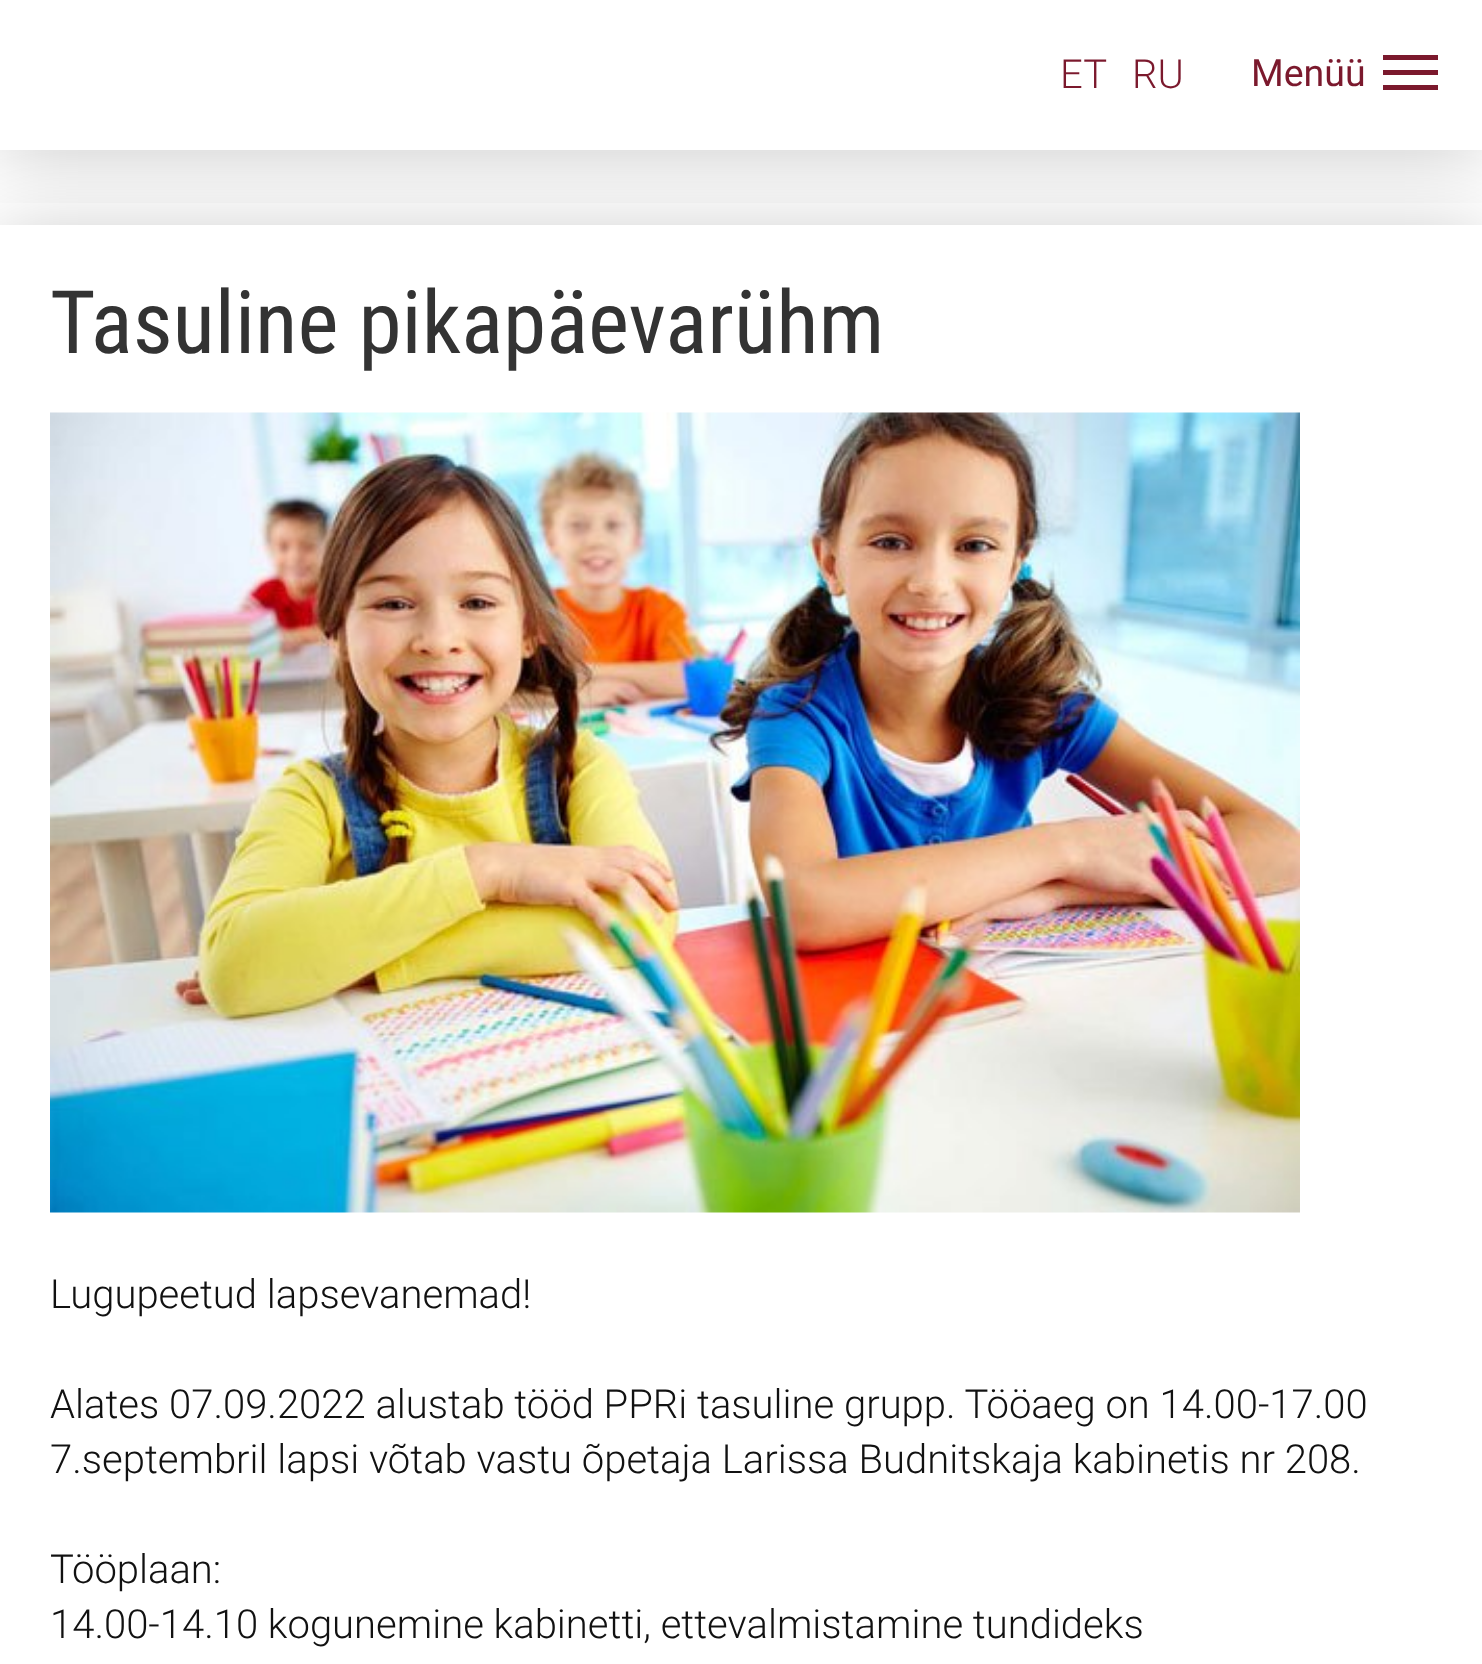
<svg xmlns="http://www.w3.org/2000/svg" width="1482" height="1664">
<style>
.a{font:300 40px Roboto;fill:#7b192d}
.b{font:37.5px Roboto;fill:#7b192d}
.c{font:87.5px Roboto Condensed;fill:#333}
.d{font:300 40px Roboto;fill:#111}
</style>
<defs>
<clipPath id="clip1"><path d="M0 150h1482v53H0z"/></clipPath>
</defs>
<rect width="100%" height="100%" fill="#fff"/>
<path fill="#00000033" filter="blur(37.5px)" d="M0 230h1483v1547H0z"/>
<path fill="#fff" d="M0 225h1482v1439H0z"/>
<g clip-path="url(#clip1)">
<path fill="#00000033" filter="blur(37.5px)" d="M0 5h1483v150H0z"/>
</g>
<path fill="#7b192d" d="M1383 55h55v5H1383z"/>
<path fill="#7b192d" d="M1383 70h55v5H1383z"/>
<path fill="#7b192d" d="M1383 85h55v5H1383z"/>
<image href="1.png" x="50" y="412" width="1250" height="801"/>
<text class="a" x="1060" y="88">ET</text>
<text class="a" x="1132" y="88">RU</text>
<text class="b" x="1251" y="86">Menüü</text>
<text class="c" x="50" y="353">Tasuline pikapäevarühm</text>
<text class="d" x="50" y="1308">Lugupeetud lapsevanemad!</text>
<text class="d" x="50" y="1418">Alates 07.09.2022 alustab tööd PPRi tasuline grupp. Tööaeg on 14.00-17.00</text>
<text class="d" x="50" y="1473">7.septembril lapsi võtab vastu õpetaja Larissa Budnitskaja kabinetis nr 208.</text>
<text class="d" x="50" y="1583">Tööplaan:</text>
<text class="d" x="50" y="1638">14.00-14.10 kogunemine kabinetti, ettevalmistamine tundideks</text>
</svg>
